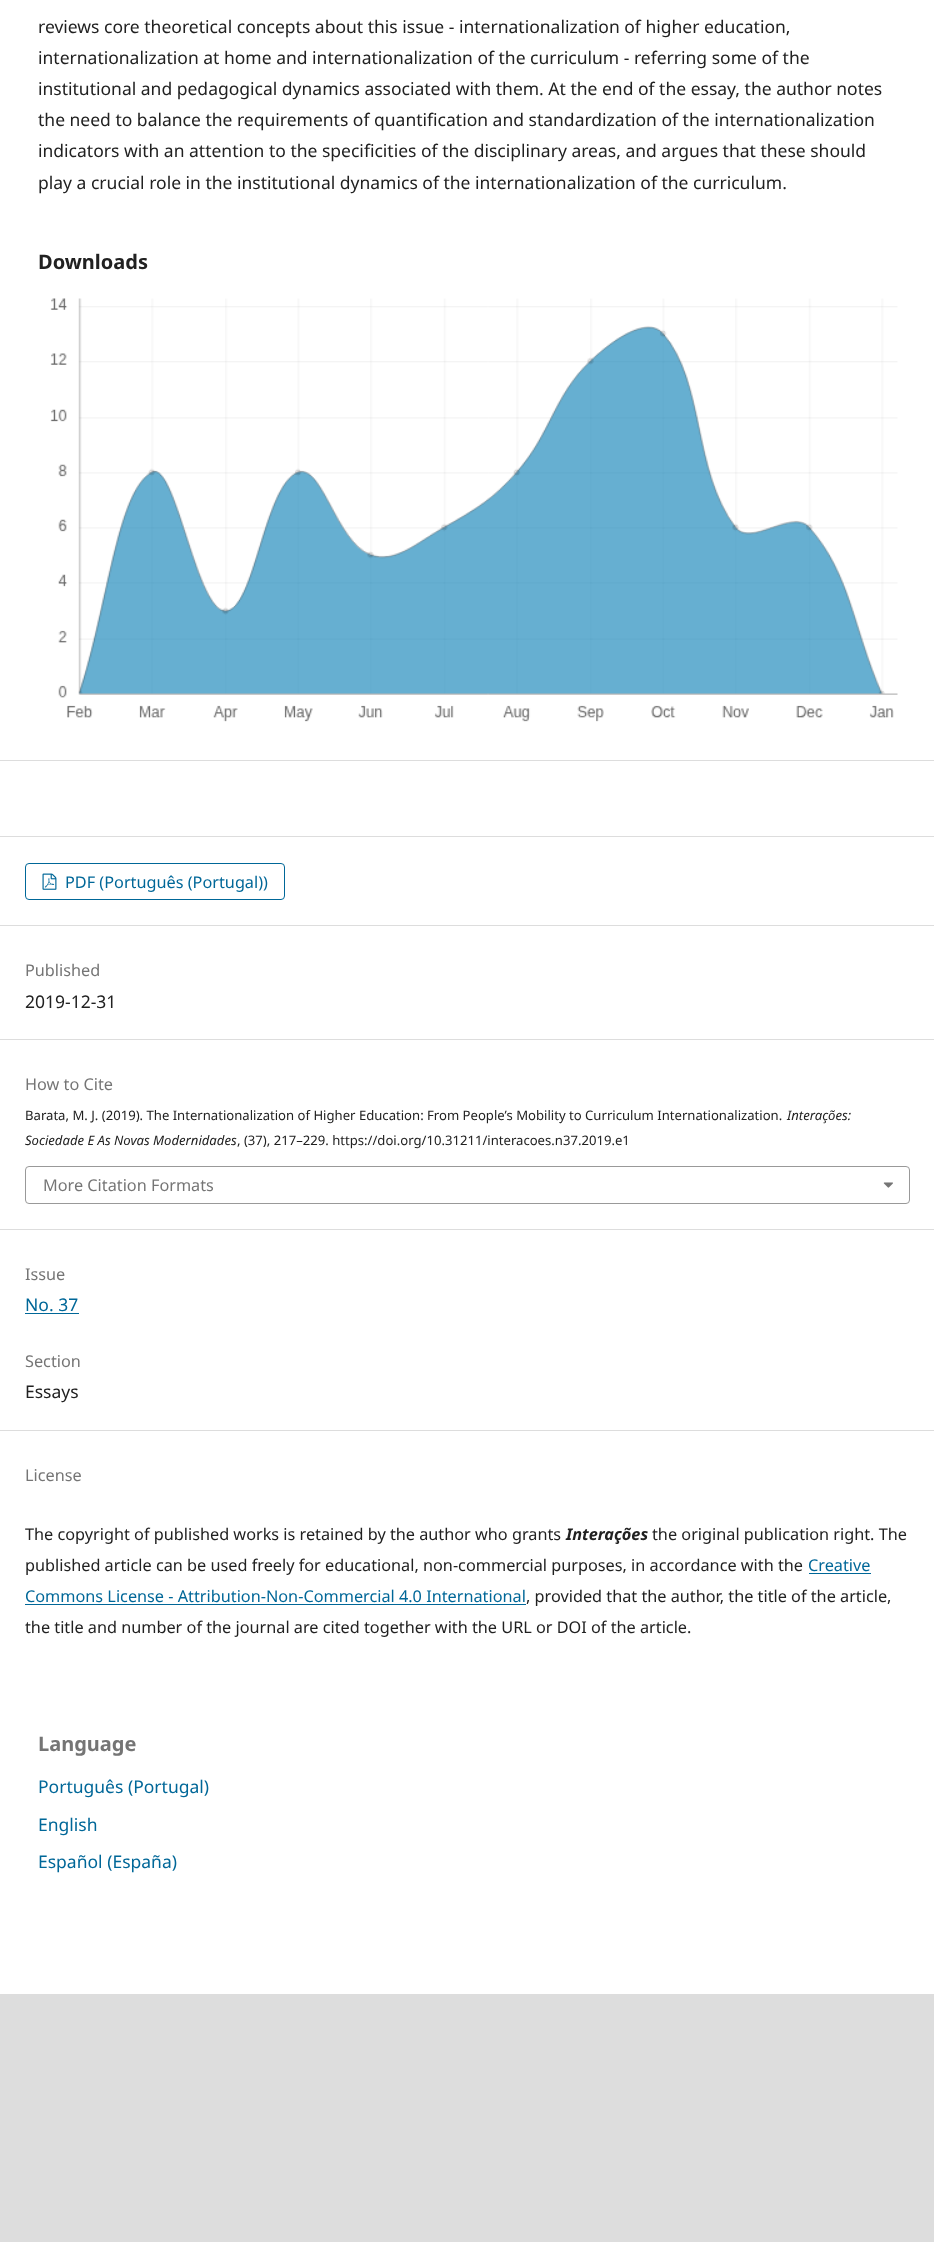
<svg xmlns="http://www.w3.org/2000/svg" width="934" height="2242">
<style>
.a{font:17.5px Noto Sans;fill:#212121}
.b{font:bold 20px Noto Sans;fill:#212121}
.c{font:16.25px Noto Sans;fill:#006798}
.d{font:16.25px Noto Sans;fill:#757575}
.e{font:13.12px Noto Sans;fill:#212121}
.f{font:italic 13.12px Noto Sans;fill:#212121}
.g{font:17.5px Noto Sans;fill:#006798}
.h{font:16.25px Noto Sans;fill:#212121}
.i{font:italic bold 16.25px Noto Sans;fill:#212121}
.j{font:bold 20px Noto Sans;fill:#757575}
</style>
<rect width="100%" height="100%" fill="#fff"/>
<image href="1.png" x="50" y="298" width="848" height="424"/>
<path fill="#ddd" d="M0 760h934v1H0z"/>
<path fill="#ddd" d="M0 836h934v1H0z"/>
<path fill="#ddd" d="M0 925h934v1H0z"/>
<rect fill="none" stroke="#006798" x="25.5" y="863.5" width="259" height="36" rx="3.5"/>
<image href="2.png" x="42" y="873" width="15" height="17"/>
<path fill="#ddd" d="M0 1039h934v1H0z"/>
<path fill="#ddd" d="M0 1229h934v1H0z"/>
<rect fill="none" stroke="#999" x="25.5" y="1166.5" width="884" height="37" rx="3.5"/>
<image href="3.png" x="883" y="1182" width="10" height="6"/>
<path fill="#ddd" d="M0 1430h934v1H0z"/>
<path fill="#006798" d="M25 1313h54v1H25z"/>
<path fill="#006798" d="M809 1573h62v1H809z"/>
<path fill="#006798" d="M25 1604h501v1H25z"/>
<path fill="#ddd" d="M0 1994h934v248H0z"/>
<text class="a" x="38" y="33">reviews core theoretical concepts about this issue - internationalization of higher education,</text>
<text class="a" x="38" y="64">internationalization at home and internationalization of the curriculum - referring some of the</text>
<text class="a" x="38" y="95">institutional and pedagogical dynamics associated with them. At the end of the essay, the author notes</text>
<text class="a" x="38" y="126">the need to balance the requirements of quantification and standardization of the internationalization</text>
<text class="a" x="38" y="157">indicators with an attention to the specificities of the disciplinary areas, and argues that these should</text>
<text class="a" x="38" y="189">play a crucial role in the institutional dynamics of the internationalization of the curriculum.</text>
<text class="b" x="38" y="269">Downloads</text>
<text class="c" x="65" y="888">PDF (Português (Portugal))</text>
<text class="d" x="25" y="976">Published</text>
<text class="a" x="25" y="1008">2019-12-31</text>
<text class="d" x="25" y="1090">How to Cite</text>
<text class="e" x="25" y="1120">Barata, M. J. (2019). The Internationalization of Higher Education: From People’s Mobility to Curriculum Internationalization.</text>
<text class="f" x="787" y="1120">Interações:</text>
<text class="f" x="25" y="1145">Sociedade E As Novas Modernidades</text>
<text class="e" x="237" y="1145">, (37), 217–229. https://doi.org/10.31211/interacoes.n37.2019.e1</text>
<text class="d" x="43" y="1191">More Citation Formats</text>
<text class="d" x="25" y="1280">Issue</text>
<text class="g" x="25" y="1311">No. 37</text>
<text class="d" x="25" y="1367">Section</text>
<text class="a" x="25" y="1398">Essays</text>
<text class="d" x="25" y="1481">License</text>
<text class="h" x="25" y="1540">The copyright of published works is retained by the author who grants</text>
<text class="i" x="566" y="1540">Interações</text>
<text class="h" x="652" y="1540">the original publication right. The</text>
<text class="h" x="25" y="1571">published article can be used freely for educational, non-commercial purposes, in accordance with the</text>
<text class="c" x="808" y="1571">Creative</text>
<text class="c" x="25" y="1602">Commons License - Attribution-Non-Commercial 4.0 International</text>
<text class="h" x="526" y="1602">, provided that the author, the title of the article,</text>
<text class="h" x="25" y="1633">the title and number of the journal are cited together with the URL or DOI of the article.</text>
<text class="j" x="38" y="1751">Language</text>
<text class="g" x="38" y="1793">Português (Portugal)</text>
<text class="g" x="38" y="1831">English</text>
<text class="g" x="38" y="1868">Español (España)</text>
</svg>
